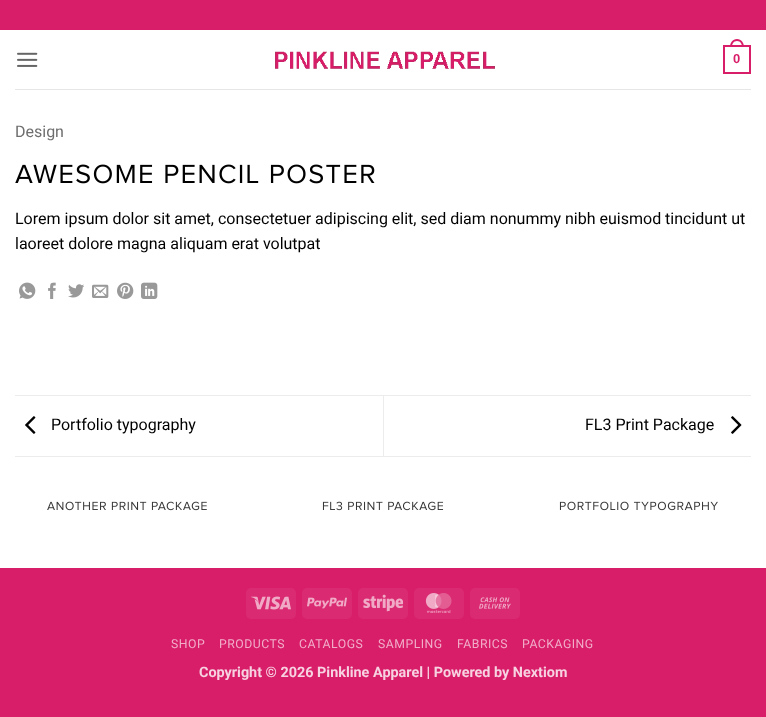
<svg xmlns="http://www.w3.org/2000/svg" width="766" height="717">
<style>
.a{font:bold 13px Liberation Sans;fill:#d81d69}
.b{font:16px Roboto;fill:#6e6e6e}
.c{font:16px Roboto;fill:#000}
.d{font:12.25px Roboto;letter-spacing:0.5px;fill:#f1aec9}
.e{font:bold 14.4px Roboto;fill:#f7d2e1}
</style>
<rect width="100%" height="100%" fill="#d81d69"/>
<path fill="#fff" d="M0 30h766v538H0z"/>
<image href="1.png" x="17" y="52" width="21" height="15"/>
<image href="2.png" x="275" y="51" width="220" height="18"/>
<path fill="none" stroke="#d81d69" stroke-width="2" d="M724 46h26v27H724z"/>
<path fill="#d81d69" fill-rule="evenodd" d="M737 39c4.5 0 7 4 7 8h-14c0-4 2.5-8 7-8zm0 2c3.5 0 5 3 5 6h-10c0-3 1.5-6 5-6z"/>
<path fill="#e6e6e6" d="M15 89h736v1H15z"/>
<image href="3.png" x="15" y="164" width="360" height="20"/>
<image href="4.png" x="19" y="282" width="17" height="17"/>
<image href="5.png" x="48" y="282" width="8" height="17"/>
<image href="6.png" x="68" y="284" width="16" height="14"/>
<image href="7.png" x="92" y="284" width="17" height="14"/>
<image href="8.png" x="117" y="282" width="17" height="17"/>
<image href="9.png" x="141" y="282" width="17" height="17"/>
<path fill="#ececec" d="M15 395h736v1H15z"/>
<path fill="#ececec" d="M15 456h736v1H15z"/>
<image href="10.png" x="25" y="416" width="11" height="18"/>
<path fill="#ececec" d="M383 396h1v60H383z"/>
<image href="11.png" x="731" y="416" width="11" height="18"/>
<image href="12.png" x="47" y="501" width="160" height="10"/>
<image href="13.png" x="322" y="501" width="122" height="10"/>
<image href="14.png" x="559" y="501" width="159" height="10"/>
<rect fill="#da2b72" x="246" y="588" width="50" height="31" rx="5"/>
<image href="15.png" x="251" y="596" width="40" height="14"/>
<rect fill="#da2b72" x="302" y="588" width="50" height="31" rx="5"/>
<image href="16.png" x="307" y="597" width="40" height="12"/>
<rect fill="#da2b72" x="358" y="588" width="50" height="31" rx="5"/>
<image href="17.png" x="363" y="594" width="40" height="18"/>
<rect fill="#da2b72" x="414" y="588" width="50" height="31" rx="5"/>
<image href="18.png" x="425" y="593" width="27" height="20"/>
<rect fill="#da2b72" x="470" y="588" width="50" height="31" rx="5"/>
<image href="19.png" x="479" y="597" width="32" height="12"/>
<text class="a" x="733" y="63">0</text>
<text class="b" x="15" y="137">Design</text>
<text class="c" x="15" y="224">Lorem ipsum dolor sit amet, consectetuer adipiscing elit, sed diam nonummy nibh euismod tincidunt ut</text>
<text class="c" x="15" y="249">laoreet dolore magna aliquam erat volutpat</text>
<text class="c" x="51" y="430">Portfolio typography</text>
<text class="c" x="585" y="430">FL3 Print Package</text>
<text class="d" x="171" y="648">SHOP</text>
<text class="d" x="219" y="648">PRODUCTS</text>
<text class="d" x="299" y="648">CATALOGS</text>
<text class="d" x="378" y="648">SAMPLING</text>
<text class="d" x="457" y="648">FABRICS</text>
<text class="d" x="522" y="648">PACKAGING</text>
<text class="e" x="199" y="677">Copyright © 2026 Pinkline Apparel | Powered by Nextiom</text>
</svg>
